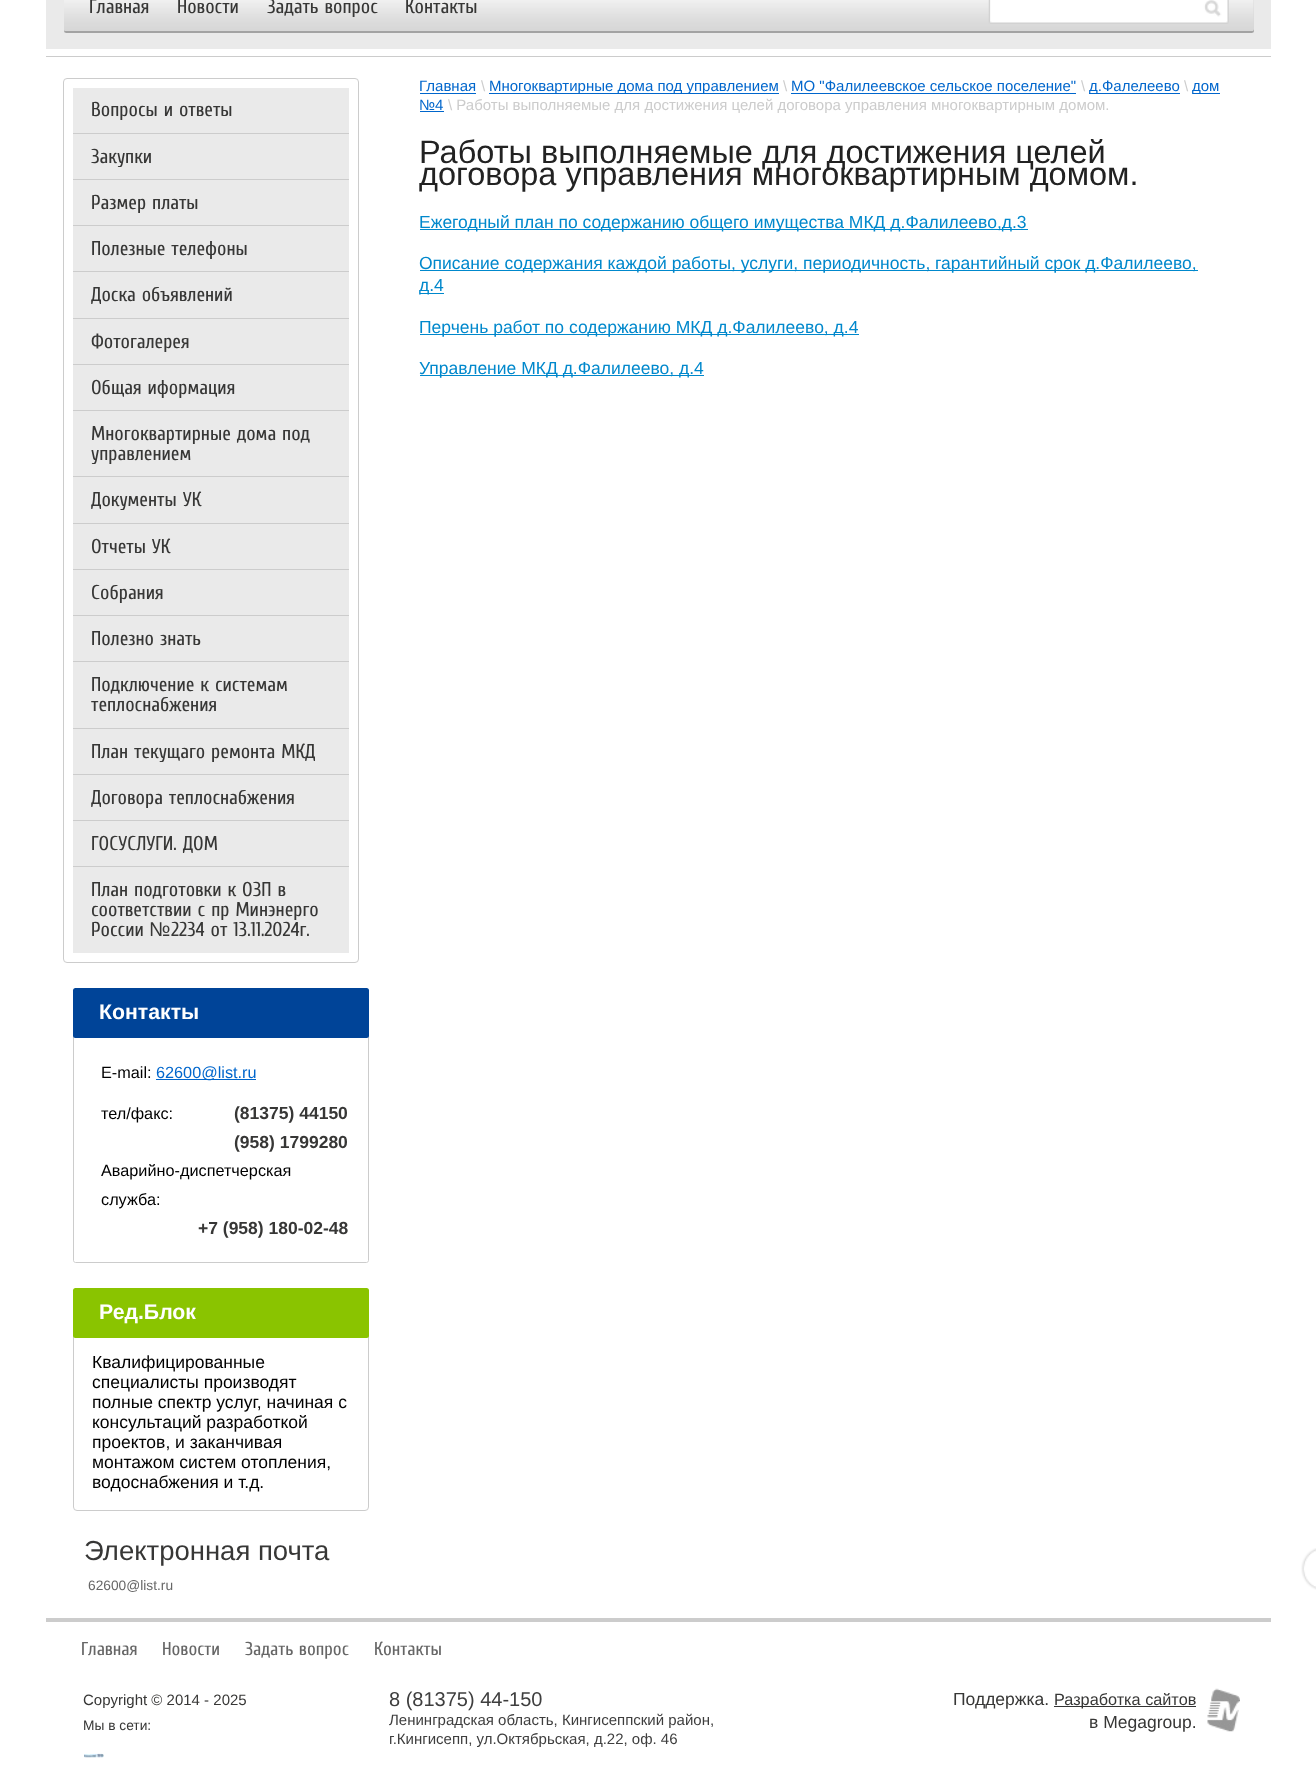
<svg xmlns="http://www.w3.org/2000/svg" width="1316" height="1774">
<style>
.a{font:20px Cuprum;fill:#373736}
.b{font:20px Liberation Sans;fill:#373736}
.c{font:bold 21.25px Liberation Sans;fill:#fff}
.d{font:16.25px Liberation Sans;fill:#000}
.e{font:16.25px Liberation Sans;fill:#06c}
.f{font:bold 17.5px Liberation Sans;fill:#373736}
.g{font:17.5px Liberation Sans;fill:#000}
.h{font:27.5px Liberation Sans;fill:#373736}
.i{font:13.75px Liberation Sans;fill:#666}
.j{font:15px Liberation Sans;fill:#06c}
.k{font:15px Liberation Sans;fill:#ccc}
.l{font:32.5px Liberation Sans;fill:#222}
.m{font:17.5px Liberation Sans;fill:#08c}
.n{font:18.75px Cuprum;fill:#666}
.o{font:15px Liberation Sans;fill:#373736}
.p{font:13.75px Liberation Sans;fill:#373736}
.q{font:20px Liberation Sans;fill:#3e3e3e}
.r{font:15px Liberation Sans;fill:#3e3e3e}
.s{font:17.5px Liberation Sans;fill:#373736}
.t{font:16.25px Liberation Sans;fill:#373736}
</style>
<rect width="100%" height="100%" fill="#fff"/>
<path fill="#eaeaea" d="M46 0h1225v49H46z"/>
<rect fill="#0000004d" filter="blur(0.5px)" x="64" y="-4" width="1190" height="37" rx="2.5"/>
<rect fill="#d7d7d7" x="64" y="-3" width="1190" height="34" rx="2.5"/>
<image href="1.png" x="64" y="0" width="1190" height="31"/>
<image href="2.png" x="988" y="0" width="241" height="24"/>
<path fill="#ccc" d="M46 56h1225v1H46z"/>
<rect fill="none" stroke="#ccc" x="63.5" y="78.5" width="295" height="884" rx="3.5"/>
<path fill="#eaeaea" d="M73 88h276v45H73z"/>
<path fill="#eaeaea" d="M73 134h276v45H73z"/>
<path fill="#ccc" d="M73 133h276v1H73z"/>
<path fill="#eaeaea" d="M73 180h276v45H73z"/>
<path fill="#ccc" d="M73 179h276v1H73z"/>
<path fill="#eaeaea" d="M73 226h276v45H73z"/>
<path fill="#ccc" d="M73 225h276v1H73z"/>
<path fill="#eaeaea" d="M73 272h276v46H73z"/>
<path fill="#ccc" d="M73 271h276v1H73z"/>
<path fill="#eaeaea" d="M73 319h276v45H73z"/>
<path fill="#ccc" d="M73 318h276v1H73z"/>
<path fill="#eaeaea" d="M73 365h276v45H73z"/>
<path fill="#ccc" d="M73 364h276v1H73z"/>
<path fill="#eaeaea" d="M73 411h276v65H73z"/>
<path fill="#ccc" d="M73 410h276v1H73z"/>
<path fill="#eaeaea" d="M73 477h276v46H73z"/>
<path fill="#ccc" d="M73 476h276v1H73z"/>
<path fill="#eaeaea" d="M73 524h276v45H73z"/>
<path fill="#ccc" d="M73 523h276v1H73z"/>
<path fill="#eaeaea" d="M73 570h276v45H73z"/>
<path fill="#ccc" d="M73 569h276v1H73z"/>
<path fill="#eaeaea" d="M73 616h276v45H73z"/>
<path fill="#ccc" d="M73 615h276v1H73z"/>
<path fill="#eaeaea" d="M73 662h276v66H73z"/>
<path fill="#ccc" d="M73 661h276v1H73z"/>
<path fill="#eaeaea" d="M73 729h276v45H73z"/>
<path fill="#ccc" d="M73 728h276v1H73z"/>
<path fill="#eaeaea" d="M73 775h276v45H73z"/>
<path fill="#ccc" d="M73 774h276v1H73z"/>
<path fill="#eaeaea" d="M73 821h276v45H73z"/>
<path fill="#ccc" d="M73 820h276v1H73z"/>
<path fill="#eaeaea" d="M73 867h276v86H73z"/>
<path fill="#ccc" d="M73 866h276v1H73z"/>
<path fill="none" stroke="#ccc" d="M73.5 1031.5h295v229c0 1-1 2-2 2h-291c-1 0-2-1-2-2z"/>
<rect fill="#004498" x="73" y="988" width="296" height="50" rx="2.5"/>
<path fill="#06c" d="M156 1079h100v1H156z"/>
<rect fill="none" stroke="#ccc" x="73.5" y="1331.5" width="295" height="179" rx="3.5"/>
<rect fill="#8ac400" x="73" y="1288" width="296" height="50" rx="2.5"/>
<path fill="#06c" d="M420 93h56v1H420z"/>
<path fill="#06c" d="M489 93h290v1H489z"/>
<path fill="#06c" d="M791 93h285v1H791z"/>
<path fill="#06c" d="M1089 93h91v1H1089z"/>
<path fill="#06c" d="M1193 93h27v1H1193z"/>
<path fill="#06c" d="M420 111h24v1H420z"/>
<path fill="#08c" d="M420 229h608v1H420z"/>
<path fill="#08c" d="M420 270h778v1H420z"/>
<path fill="#08c" d="M420 293h24v1H420z"/>
<path fill="#08c" d="M420 334h439v1H420z"/>
<path fill="#08c" d="M420 375h284v1H420z"/>
<path fill="#ccc" d="M46 1618h1225v4H46z"/>
<image href="3.png" x="1301" y="1548" width="15" height="42"/>
<image href="4.png" x="84" y="1753" width="20" height="5"/>
<image href="5.png" x="1207" y="1688" width="33" height="44"/>
<path fill="#333" d="M1054 1706h142v1H1054z"/>
<text class="a" x="89" y="13">Главная</text>
<text class="a" x="177" y="13">Новости</text>
<text class="a" x="267" y="13">Задать вопрос</text>
<text class="a" x="405" y="13">Контакты</text>
<text class="a" x="91" y="116">Вопросы и ответы</text>
<text class="a" x="91" y="163">Закупки</text>
<text class="a" x="91" y="209">Размер платы</text>
<text class="a" x="91" y="255">Полезные телефоны</text>
<text class="a" x="91" y="301">Доска объявлений</text>
<text class="a" x="91" y="348">Фотогалерея</text>
<text class="a" x="91" y="394">Общая иформация</text>
<text class="a" x="91" y="440">Многоквартирные дома под</text>
<text class="a" x="91" y="460">управлением</text>
<text class="a" x="91" y="506">Документы УК</text>
<text class="a" x="91" y="553">Отчеты УК</text>
<text class="a" x="91" y="599">Собрания</text>
<text class="a" x="91" y="645">Полезно знать</text>
<text class="a" x="91" y="691">Подключение к системам</text>
<text class="a" x="91" y="711">теплоснабжения</text>
<text class="a" x="91" y="758">План текущаго ремонта МКД</text>
<text class="a" x="91" y="804">Договора теплоснабжения</text>
<text class="a" x="91" y="850">ГОСУСЛУГИ. ДОМ</text>
<text class="a" x="91" y="896">План подготовки к ОЗП в</text>
<text class="a" x="91" y="916">соответствии с пр Минэнерго</text>
<text class="a" x="91" y="936">России</text>
<text class="b" x="149" y="936">№</text>
<text class="a" x="171" y="936">2234 от 13.11.2024г.</text>
<text class="c" x="99" y="1019">Контакты</text>
<text class="d" x="101" y="1078">E-mail:</text>
<text class="e" x="156" y="1078">62600@list.ru</text>
<text class="d" x="101" y="1119">тел/факс:</text>
<text class="f" x="234" y="1119">(81375) 44150</text>
<text class="f" x="234" y="1148">(958) 1799280</text>
<text class="d" x="101" y="1176">Аварийно-диспетчерская</text>
<text class="d" x="101" y="1205">служба:</text>
<text class="f" x="198" y="1234">+7 (958) 180-02-48</text>
<text class="c" x="99" y="1319">Ред.Блок</text>
<text class="g" x="92" y="1368">Квалифицированные</text>
<text class="g" x="92" y="1388">специалисты производят</text>
<text class="g" x="92" y="1408">полные спектр услуг, начиная с</text>
<text class="g" x="92" y="1428">консультаций разработкой</text>
<text class="g" x="92" y="1448">проектов, и заканчивая</text>
<text class="g" x="92" y="1468">монтажом систем отопления,</text>
<text class="g" x="92" y="1488">водоснабжения и т.д.</text>
<text class="h" x="84" y="1560">Электронная почта</text>
<text class="i" x="88" y="1590">62600@list.ru</text>
<text class="j" x="419" y="91">Главная</text>
<text class="k" x="481" y="91">\</text>
<text class="j" x="489" y="91">Многоквартирные дома под управлением</text>
<text class="k" x="783" y="91">\</text>
<text class="j" x="791" y="91">МО "Фалилеевское сельское поселение"</text>
<text class="k" x="1081" y="91">\</text>
<text class="j" x="1089" y="91">д.Фалелеево</text>
<text class="k" x="1184" y="91">\</text>
<text class="j" x="1192" y="91">дом</text>
<text class="j" x="419" y="110">№4</text>
<text class="k" x="448" y="110">\ Работы выполняемые для достижения целей договора управления многоквартирным домом.</text>
<text class="l" x="419" y="163">Работы выполняемые для достижения целей</text>
<text class="l" x="419" y="185">договора управления многоквартирным домом.</text>
<text class="m" x="419" y="228">Ежегодный план по содержанию общего имущества МКД д.Фалилеево,д.3</text>
<text class="m" x="419" y="269">Описание содержания каждой работы, услуги, периодичность, гарантийный срок д.Фалилеево,</text>
<text class="m" x="419" y="291">д.4</text>
<text class="m" x="419" y="333">Перчень работ по содержанию МКД д.Фалилеево, д.4</text>
<text class="m" x="419" y="374">Управление МКД д.Фалилеево, д.4</text>
<text class="n" x="81" y="1655">Главная</text>
<text class="n" x="162" y="1655">Новости</text>
<text class="n" x="245" y="1655">Задать вопрос</text>
<text class="n" x="374" y="1655">Контакты</text>
<text class="o" x="83" y="1705">Copyright © 2014 - 2025</text>
<text class="p" x="83" y="1730">Мы в сети:</text>
<text class="q" x="389" y="1706">8 (81375) 44-150</text>
<text class="r" x="389" y="1725">Ленинградская область, Кингисеппский район,</text>
<text class="r" x="389" y="1744">г.Кингисепп, ул.Октябрьская, д.22, оф. 46</text>
<text class="s" x="953" y="1705">Поддержка.</text>
<text class="t" x="1054" y="1705">Разработка сайтов</text>
<text class="s" x="1089" y="1728">в Megagroup.</text>
</svg>
